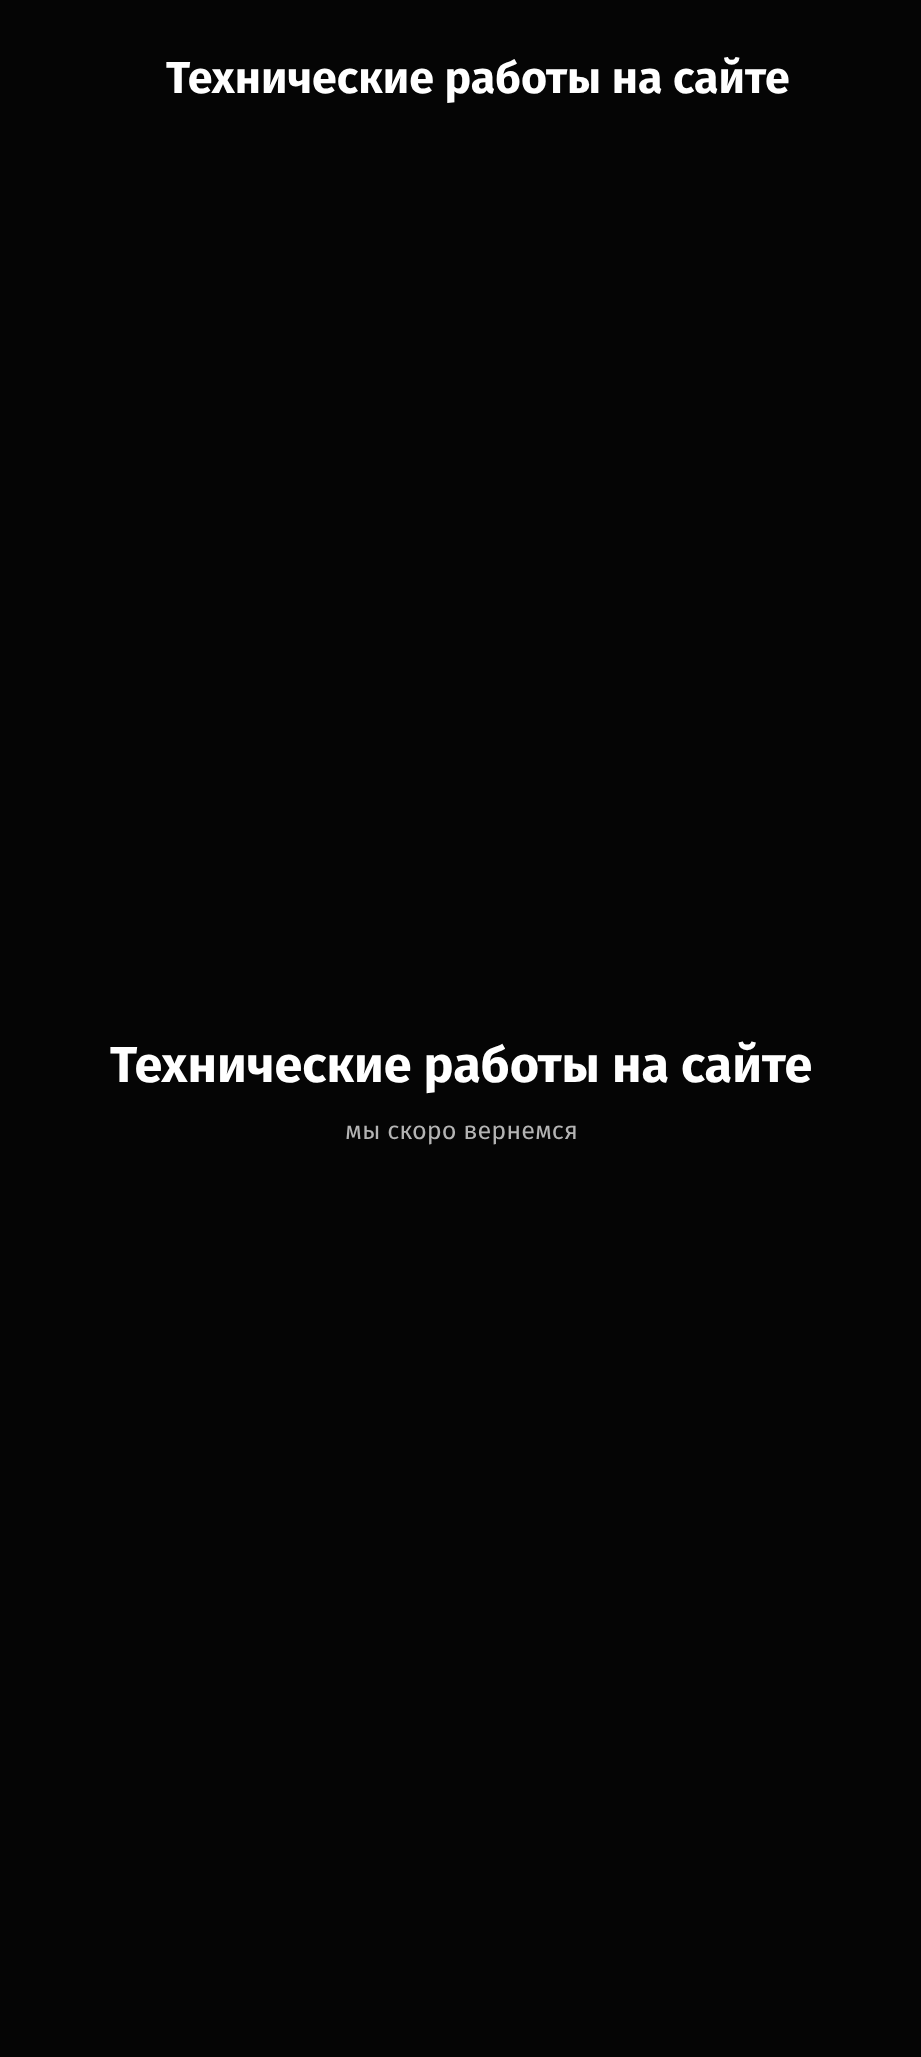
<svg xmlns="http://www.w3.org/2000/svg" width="921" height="2057">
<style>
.a{font:bold 44.75px Fira Sans;fill:#fff}
.b{font:bold 50.4px Fira Sans;fill:#fff}
.c{font:25.25px Fira Sans;fill:#b4b4b4}
</style>
<rect width="100%" height="100%" fill="#050505"/>
<text class="a" x="166" y="93">Технические работы на сайте</text>
<text class="b" x="110" y="1082">Технические работы на сайте</text>
<text class="c" x="345" y="1139">мы скоро вернемся</text>
</svg>
